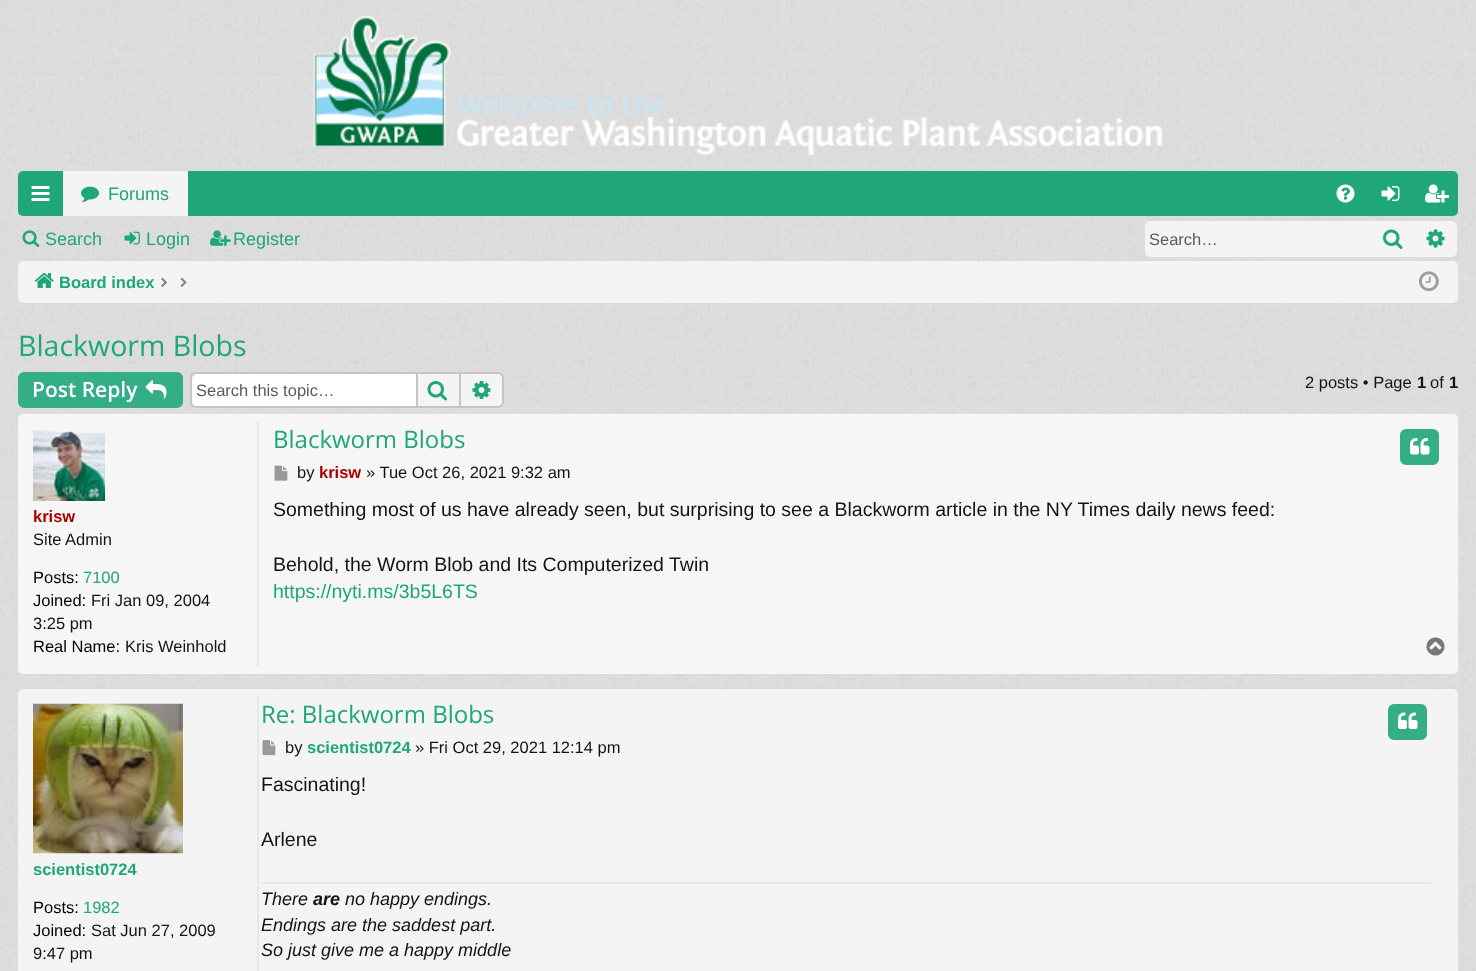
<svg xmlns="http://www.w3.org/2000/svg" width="1476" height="971">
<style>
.a{font:18px Liberation Sans;fill:#1fa67a}
.b{font:16.5px Liberation Sans;fill:#5b5b5b}
.c{font:bold 16.5px Liberation Sans;fill:#1fa67a}
.d{font:28.5px Open Sans;fill:#1fa67a}
.e{font:600 21px Open Sans;fill:#fff}
.f{font:16.5px Liberation Sans;fill:#141414}
.g{font:bold 16.5px Liberation Sans;fill:#141414}
.h{font:bold 16.5px Liberation Sans;fill:#a00}
.i{font:16.5px Liberation Sans;fill:#000}
.j{font:16.5px Liberation Sans;fill:#1fa67a}
.k{font:24px Open Sans;fill:#1fa67a}
.l{font:19.5px Liberation Sans;fill:#141414}
.m{font:19.5px Liberation Sans;fill:#1fa67a}
.n{font:italic 18px Liberation Sans;fill:#141414}
.o{font:italic bold 18px Liberation Sans;fill:#141414}
</style>
<rect width="100%" height="100%" fill="#e0e0e0"/>
<image href="1.png" x="0" y="0" width="1476" height="971"/>
<image href="2.png" x="313" y="15" width="850" height="140"/>
<rect fill="#1fa67a" x="18" y="171" width="1440" height="45" rx="5"/>
<image href="3.png" x="31" y="186" width="19" height="15"/>
<path fill="#f4f4f4" d="M63 171h125v45H63z"/>
<image href="4.png" x="81" y="186" width="18" height="16"/>
<image href="5.png" x="1336" y="184" width="19" height="19"/>
<image href="6.png" x="1381" y="186" width="19" height="15"/>
<image href="7.png" x="1425" y="184" width="24" height="19"/>
<image href="8.png" x="22" y="230" width="18" height="17"/>
<image href="9.png" x="124" y="231" width="16" height="14"/>
<image href="10.png" x="210" y="230" width="21" height="16"/>
<path fill="#f4f4f4" d="M1151 221h219v36h-219c-3.5 0-6-2.5-6-6v-24c0-3.5 2.5-6 6-6z"/>
<path fill="#f4f4f4" d="M1370 221h45v36H1370z"/>
<image href="11.png" x="1383" y="229" width="20" height="20"/>
<path fill="#f4f4f4" d="M1415 221h36c3.5 0 6 2.5 6 6v24c0 3.5-2.5 6-6 6h-36z"/>
<image href="12.png" x="1426" y="229" width="19" height="19"/>
<rect fill="#f4f4f4" x="18" y="261" width="1440" height="42" rx="5"/>
<image href="13.png" x="34" y="273" width="20" height="15"/>
<image href="14.png" x="161" y="277" width="6" height="10"/>
<image href="15.png" x="180" y="277" width="7" height="10"/>
<image href="16.png" x="1419" y="271" width="20" height="21"/>
<rect fill="#34ae86" stroke="#34ae86" stroke-width="2" x="19" y="373" width="163" height="34" rx="5"/>
<image href="17.png" x="145" y="380" width="22" height="19"/>
<path fill="#fff" d="M197 374h219v33h-219c-3 0-5-2-5-5v-23c0-3 2-5 5-5z"/>
<path fill="#c6c6c6" fill-rule="evenodd" d="M196 372h220v36h-220c-3 0-6-3-6-6v-24c0-3 3-6 6-6zm0 2h220v32h-220c-2 0-4-2-4-4v-24c0-2 2-4 4-4z"/>
<path fill="#f4f4f4" stroke="#c6c6c6" stroke-width="2" d="M417 373h43v34H417z"/>
<image href="18.png" x="427" y="381" width="20" height="20"/>
<path fill="#f4f4f4" d="M461 374h37c3 0 5 2 5 5v23c0 3-2 5-5 5h-37z"/>
<path fill="#c6c6c6" fill-rule="evenodd" d="M460 372h38c3 0 6 3 6 6v24c0 3-3 6-6 6h-38zm0 2h38c2 0 4 2 4 4v24c0 2-2 4-4 4h-38z"/>
<image href="19.png" x="472" y="381" width="19" height="18"/>
<rect fill="#f6f6f6" x="18" y="414" width="1440" height="260" rx="5"/>
<path fill="#e7e7e7" d="M257 422h2v244H257z"/>
<image href="20.png" x="33" y="429" width="72" height="72"/>
<rect fill="#34ae86" stroke="#34ae86" stroke-width="2" x="1401" y="430" width="37" height="34" rx="5"/>
<image href="21.png" x="1410" y="438" width="20" height="17"/>
<image href="22.png" x="274" y="465" width="14" height="16"/>
<image href="23.png" x="1426" y="637" width="19" height="19"/>
<rect fill="#f4f4f4" x="18" y="689" width="1440" height="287" rx="5"/>
<path fill="#e7e7e7" d="M257 696h2v275H257z"/>
<image href="24.png" x="33" y="703" width="150" height="151"/>
<rect fill="#34ae86" stroke="#34ae86" stroke-width="2" x="1389" y="705" width="37" height="34" rx="5"/>
<image href="25.png" x="1398" y="712" width="20" height="17"/>
<image href="26.png" x="262" y="740" width="14" height="16"/>
<path fill="#e7e7e7" d="M261 882h1170v2H261z"/>
<text class="a" x="108" y="200">Forums</text>
<text class="a" x="45" y="245">Search</text>
<text class="a" x="146" y="245">Login</text>
<text class="a" x="233" y="245">Register</text>
<text class="b" x="1149" y="245">Search…</text>
<text class="c" x="59" y="288">Board index</text>
<text class="d" x="18" y="356">Blackworm Blobs</text>
<text class="e" x="32" y="397">Post Reply</text>
<text class="b" x="196" y="396">Search this topic…</text>
<text class="f" x="1305" y="388">2 posts • Page</text>
<text class="g" x="1417" y="388">1</text>
<text class="f" x="1430" y="388">of</text>
<text class="g" x="1449" y="388">1</text>
<text class="h" x="33" y="522">krisw</text>
<text class="f" x="33" y="545">Site Admin</text>
<text class="i" x="33" y="583">Posts:</text>
<text class="j" x="83" y="583">7100</text>
<text class="i" x="33" y="606">Joined:</text>
<text class="f" x="91" y="606">Fri Jan 09, 2004</text>
<text class="f" x="33" y="629">3:25 pm</text>
<text class="i" x="33" y="652">Real Name:</text>
<text class="f" x="125" y="652">Kris Weinhold</text>
<text class="k" x="273" y="448">Blackworm Blobs</text>
<text class="f" x="297" y="478">by</text>
<text class="h" x="319" y="478">krisw</text>
<text class="f" x="366" y="478">» Tue Oct 26, 2021 9:32 am</text>
<text class="l" x="273" y="516">Something most of us have already seen, but surprising to see a Blackworm article in the NY Times daily news feed:</text>
<text class="l" x="273" y="571">Behold, the Worm Blob and Its Computerized Twin</text>
<text class="m" x="273" y="598">https://nyti.ms/3b5L6TS</text>
<text class="c" x="33" y="875">scientist0724</text>
<text class="i" x="33" y="913">Posts:</text>
<text class="j" x="83" y="913">1982</text>
<text class="i" x="33" y="936">Joined:</text>
<text class="f" x="91" y="936">Sat Jun 27, 2009</text>
<text class="f" x="33" y="959">9:47 pm</text>
<text class="k" x="261" y="723">Re: Blackworm Blobs</text>
<text class="f" x="285" y="753">by</text>
<text class="c" x="307" y="753">scientist0724</text>
<text class="f" x="415" y="753">» Fri Oct 29, 2021 12:14 pm</text>
<text class="l" x="261" y="791">Fascinating!</text>
<text class="l" x="261" y="846">Arlene</text>
<text class="n" x="261" y="905">There</text>
<text class="o" x="313" y="905">are</text>
<text class="n" x="345" y="905">no happy endings.</text>
<text class="n" x="261" y="931">Endings are the saddest part.</text>
<text class="n" x="261" y="956">So just give me a happy middle</text>
</svg>
